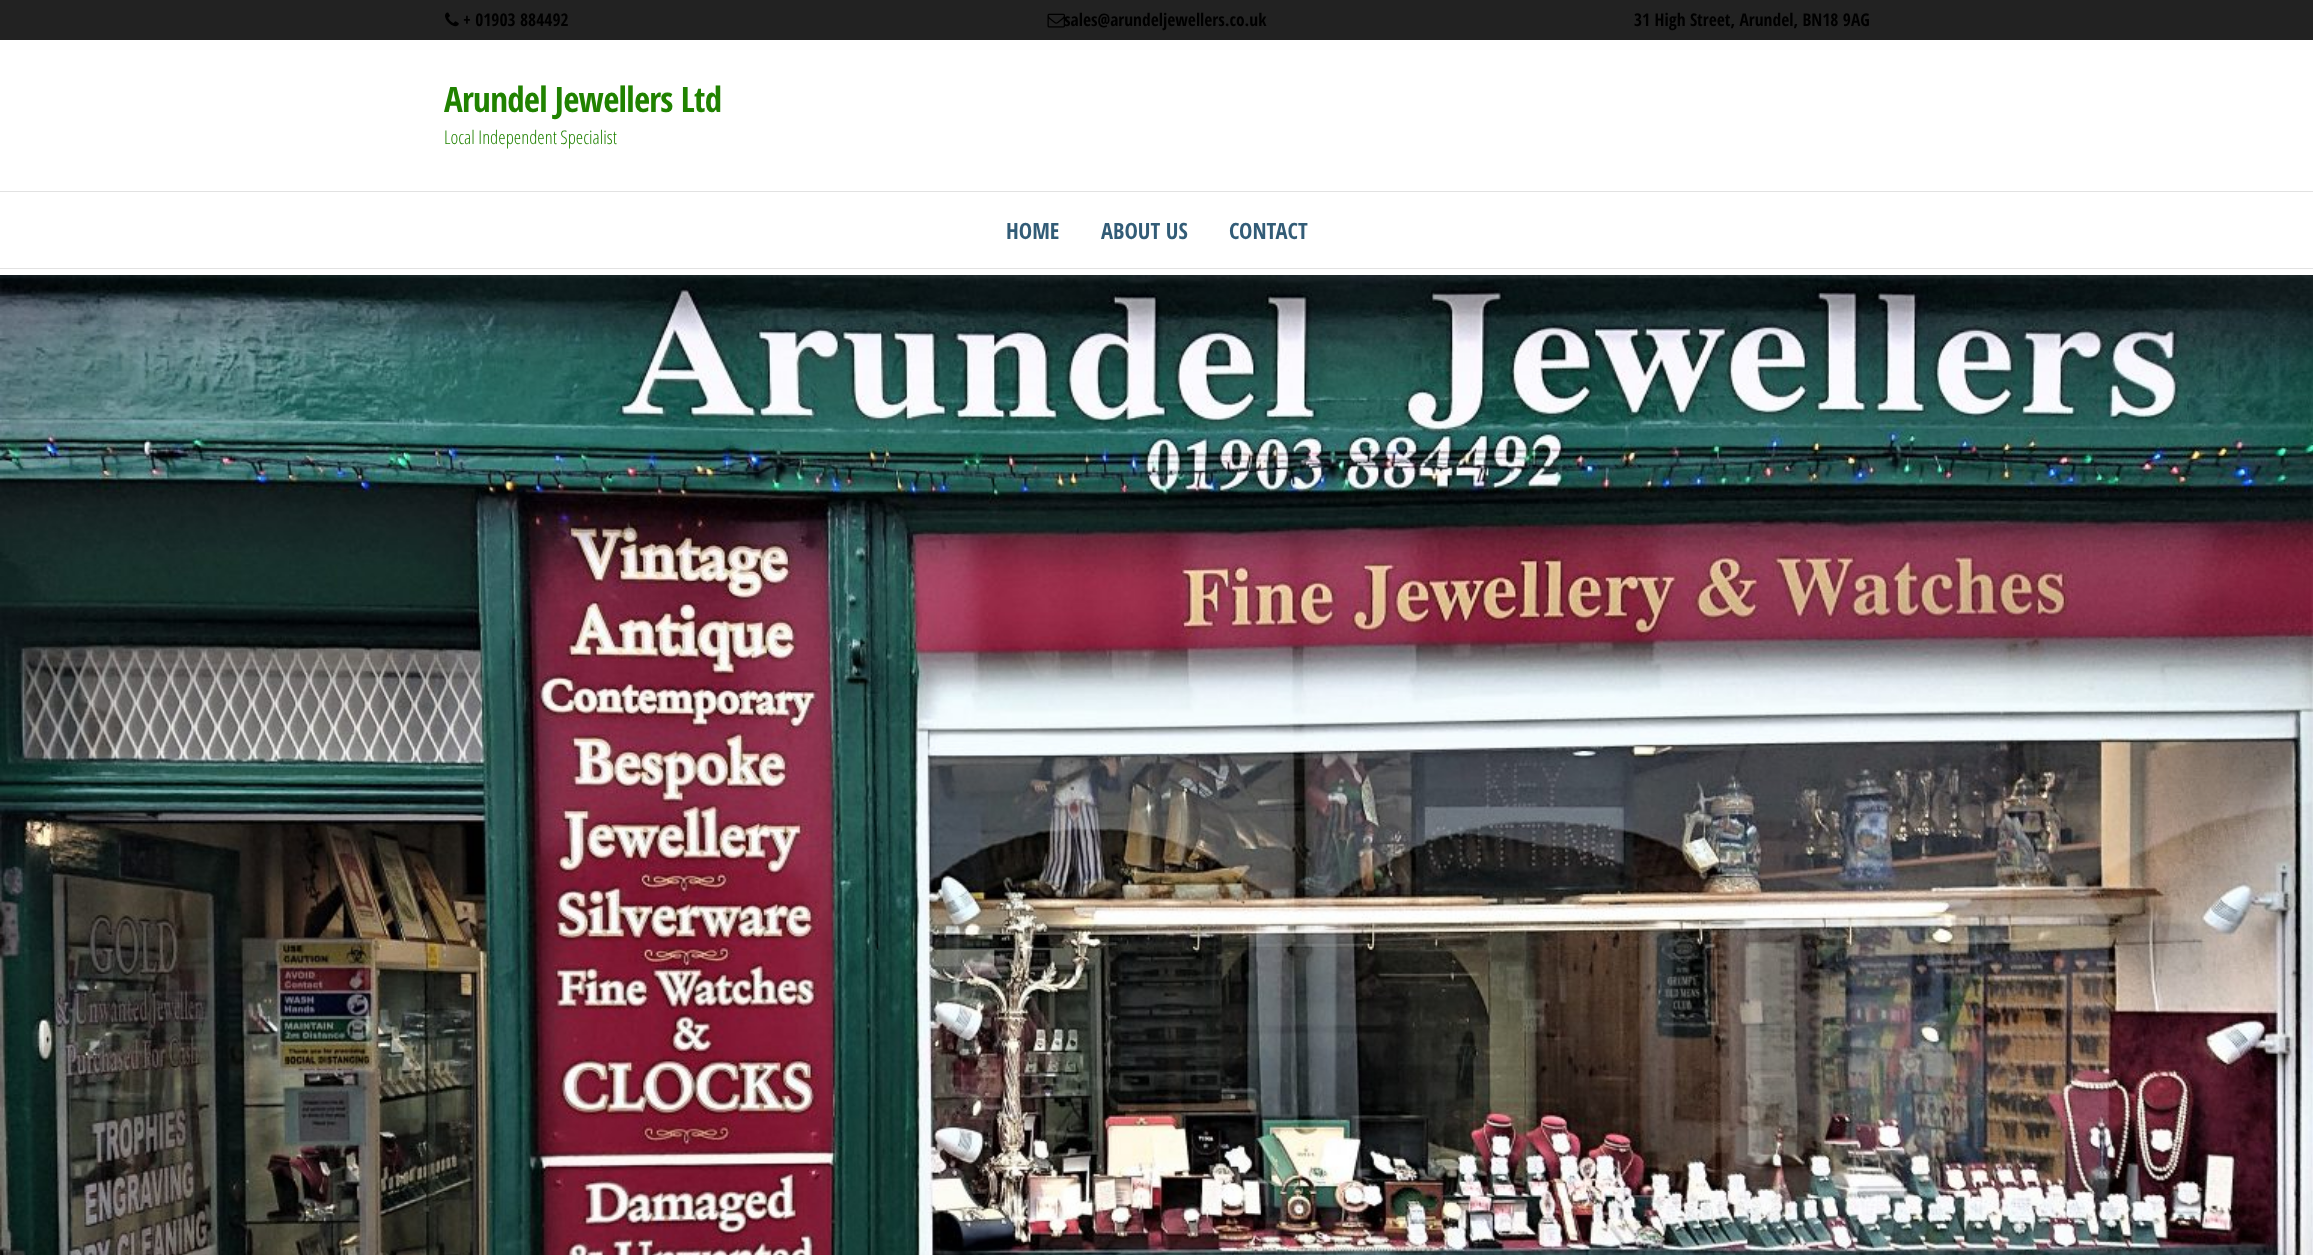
<svg xmlns="http://www.w3.org/2000/svg" width="2313" height="1255">
<style>
.a{font:bold 17.5px Open Sans Condensed;fill:#000}
.b{font:bold 35px Open Sans Condensed;letter-spacing:-0.7px;fill:#208200}
.c{font:300 18.75px Open Sans Condensed;fill:#208200}
.d{font:bold 22.5px Open Sans Condensed;fill:#325c77}
</style>
<rect width="100%" height="100%" fill="#fff"/>
<path fill="#222" d="M0 0h2313v40H0z"/>
<image href="1.png" x="445" y="12" width="14" height="15"/>
<image href="2.png" x="1047" y="13" width="18" height="15"/>
<path fill="#e2e2e2" d="M0 191h2313v1H0z"/>
<path fill="#e2e2e2" d="M0 268h2313v1H0z"/>
<image href="3.png" x="0" y="275" width="2313" height="980"/>
<text class="a" x="463" y="26">+ 01903 884492</text>
<text class="a" x="1064" y="26">sales@arundeljewellers.co.uk</text>
<text class="a" x="1634" y="26">31 High Street, Arundel, BN18 9AG</text>
<text class="b" x="444" y="112">Arundel Jewellers Ltd</text>
<text class="c" x="444" y="144">Local Independent Specialist</text>
<text class="d" x="1006" y="239">HOME</text>
<text class="d" x="1101" y="239">ABOUT US</text>
<text class="d" x="1229" y="239">CONTACT</text>
</svg>
